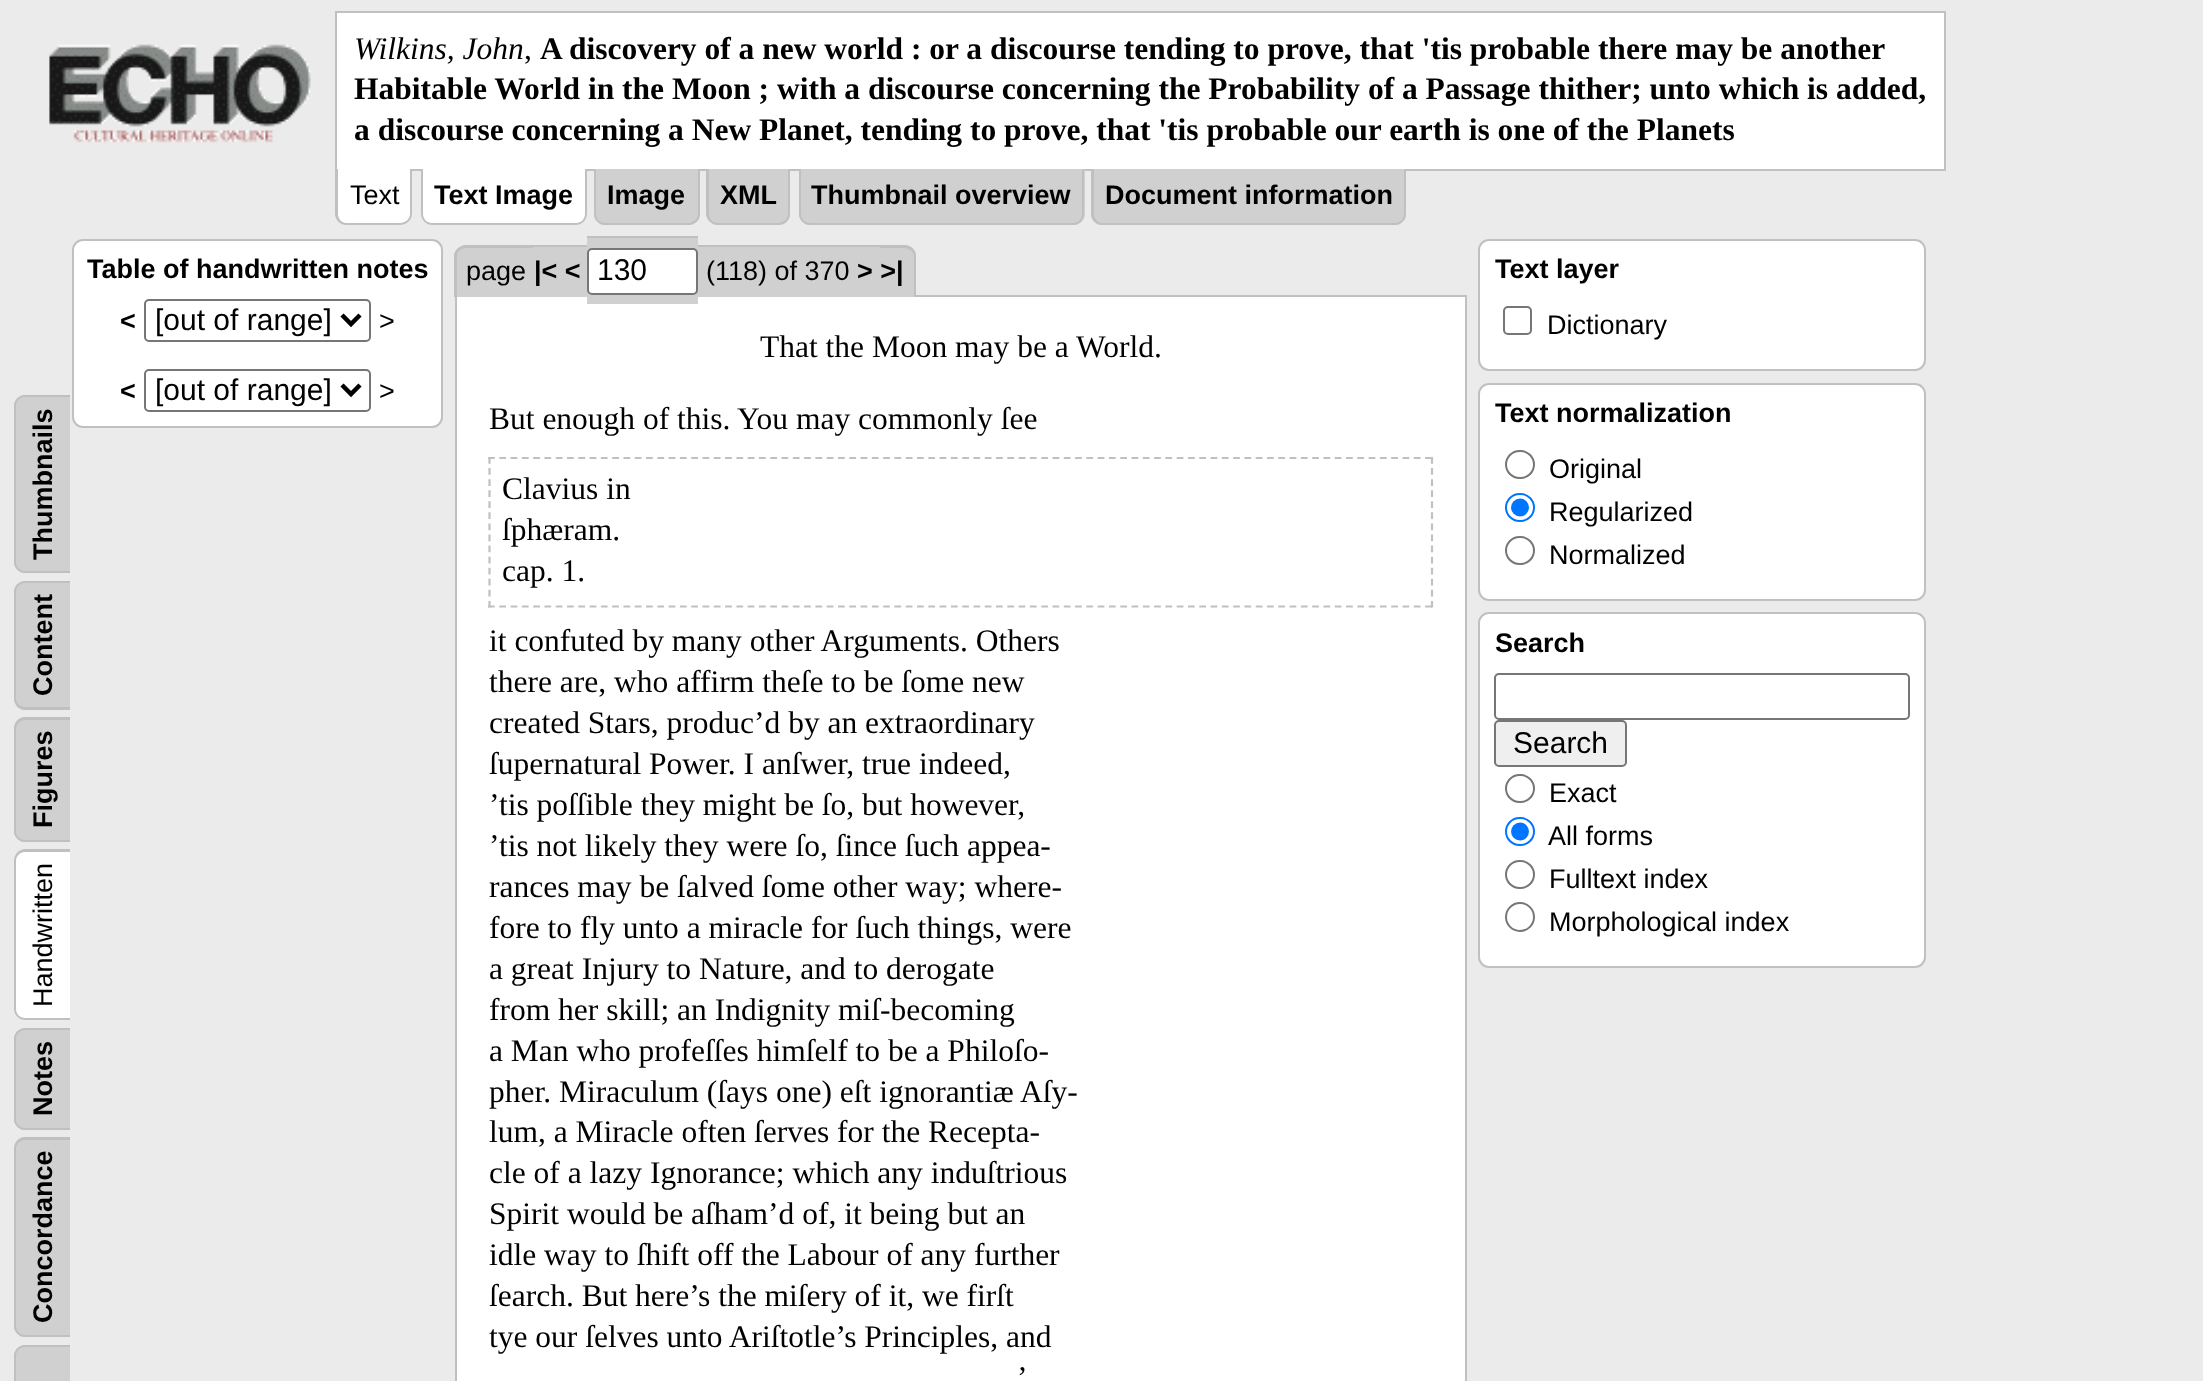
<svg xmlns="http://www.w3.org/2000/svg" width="2203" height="1381">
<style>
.a{font:italic 31.5px Liberation Serif;fill:#000}
.b{font:31.5px Liberation Serif;fill:#000}
.c{font:bold 31.5px Liberation Serif;fill:#000}
.d{font:27px Liberation Sans;fill:#000}
.e{font:bold 27px Liberation Sans;fill:#000}
.f{font:30px Liberation Sans;fill:#000}
</style>
<rect width="100%" height="100%" fill="#ebebeb"/>
<image href="1.png" x="49" y="44" width="262" height="99"/>
<path fill="#fff" stroke="#c0c0c0" stroke-width="2" d="M336 12h1609v158H336z"/>
<path fill="#fff" d="M335 169h77v45c0 6-5 11-11 11h-55c-6 0-11-5-11-11z"/>
<path fill="#c0c0c0" fill-rule="evenodd" d="M335 169h77v45c0 6-5 11-12 11h-54c-6 0-11-5-11-11zm3 0h72v45c0 5-5 9-10 9h-54c-4 0-8-4-8-9z"/>
<path fill="#fff" d="M421 169h166v45c0 6-5 11-11 11h-144c-6 0-11-5-11-11z"/>
<path fill="#c0c0c0" fill-rule="evenodd" d="M421 169h166v45c0 6-5 11-11 11h-144c-6 0-11-5-11-11zm2 0h162v45c0 5-4 9-9 9h-144c-5 0-9-4-9-9z"/>
<path fill="#d0d0d0" d="M594 169h106v45c0 6-5 11-11 11h-84c-6 0-11-5-11-11z"/>
<path fill="#c0c0c0" fill-rule="evenodd" d="M594 169h106v45c0 6-5 11-12 11h-83c-6 0-11-5-11-11zm2 0h102v45c0 5-5 9-10 9h-83c-5 0-9-4-9-9z"/>
<path fill="#d0d0d0" d="M707 169h83v45c0 6-5 11-11 11h-61c-6 0-11-5-11-11z"/>
<path fill="#c0c0c0" fill-rule="evenodd" d="M706 169h84v45c0 6-5 11-12 11h-60c-6 0-12-5-12-11zm3 0h79v45c0 5-5 9-10 9h-60c-5 0-9-4-9-9z"/>
<path fill="#d0d0d0" d="M799 169h286v45c0 6-5 11-11 11h-264c-6 0-11-5-11-11z"/>
<path fill="#c0c0c0" fill-rule="evenodd" d="M799 169h285v45c0 6-5 11-11 11h-263c-6 0-11-5-11-11zm2 0h281v45c0 5-4 9-9 9h-263c-5 0-9-4-9-9z"/>
<path fill="#d0d0d0" d="M1091 169h315v45c0 6-5 11-11 11h-293c-6 0-11-5-11-11z"/>
<path fill="#c0c0c0" fill-rule="evenodd" d="M1091 169h315v45c0 6-5 11-11 11h-293c-6 0-11-5-11-11zm3 0h310v45c0 5-4 9-9 9h-293c-4 0-8-4-8-9z"/>
<rect fill="#fff" stroke="#c0c0c0" stroke-width="2" x="73" y="240" width="369" height="187" rx="10"/>
<rect fill="none" stroke="#767676" stroke-width="2" x="145" y="300" width="225" height="41" rx="4"/>
<path fill="none" stroke="#000" stroke-width="4.5" d="M342 315l9 9l9-9"/>
<rect fill="none" stroke="#767676" stroke-width="2" x="145" y="370" width="225" height="41" rx="4"/>
<path fill="none" stroke="#000" stroke-width="4.5" d="M342 385l9 9l9-9"/>
<path fill="#d0d0d0" d="M14 562v-156c0-6 5-11 11-11h45v178h-45c-6 0-11-5-11-11z"/>
<path fill="#c0c0c0" fill-rule="evenodd" d="M14 562v-156c0-6 5-11 11-11h45v178h-45c-6 0-11-5-11-11zm2 0v-156c0-5 4-9 9-9h45v174h-45c-5 0-9-4-9-9z"/>
<path fill="#d0d0d0" d="M14 698v-106c0-6 5-11 11-11h45v129h-45c-6 0-11-5-11-12z"/>
<path fill="#c0c0c0" fill-rule="evenodd" d="M14 698v-106c0-6 5-11 11-11h45v129h-45c-6 0-11-5-11-12zm2 0v-106c0-5 4-9 9-9h45v124h-45c-5 0-9-4-9-9z"/>
<path fill="#d0d0d0" d="M14 831v-102c0-7 5-12 11-12h45v125h-45c-6 0-11-5-11-11z"/>
<path fill="#c0c0c0" fill-rule="evenodd" d="M14 831v-102c0-7 5-12 11-12h45v125h-45c-6 0-11-5-11-11zm2 0v-102c0-5 4-9 9-9h45v120h-45c-5 0-9-4-9-9z"/>
<path fill="#fff" d="M14 1009v-148c0-7 5-12 11-12h45v171h-45c-6 0-11-5-11-11z"/>
<path fill="#c0c0c0" fill-rule="evenodd" d="M14 1009v-148c0-7 5-12 11-12h45v171h-45c-6 0-11-5-11-11zm2 0v-148c0-5 4-9 9-9h45v166h-45c-5 0-9-4-9-9z"/>
<path fill="#d0d0d0" d="M14 1119v-80c0-6 5-11 11-11h45v102h-45c-6 0-11-5-11-11z"/>
<path fill="#c0c0c0" fill-rule="evenodd" d="M14 1119v-80c0-6 5-11 11-11h45v102h-45c-6 0-11-5-11-11zm2 0v-80c0-5 4-9 9-9h45v98h-45c-5 0-9-4-9-9z"/>
<path fill="#d0d0d0" d="M14 1326v-177c0-7 5-12 11-12h45v200h-45c-6 0-11-5-11-11z"/>
<path fill="#c0c0c0" fill-rule="evenodd" d="M14 1326v-177c0-7 5-12 11-12h45v200h-45c-6 0-11-5-11-11zm2 0v-177c0-5 4-9 9-9h45v195h-45c-5 0-9-4-9-9z"/>
<path fill="#d0d0d0" d="M14 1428v-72c0-6 5-11 11-11h45v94h-45c-6 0-11-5-11-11z"/>
<path fill="#c0c0c0" fill-rule="evenodd" d="M14 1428v-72c0-6 5-11 11-11h45v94h-45c-6 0-11-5-11-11zm2 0v-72c0-5 4-9 9-9h45v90h-45c-5 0-9-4-9-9z"/>
<path fill="#fff" stroke="#c0c0c0" stroke-width="2" d="M456 296h1010v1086H456z"/>
<path fill="#d0d0d0" d="M466 245h67v52h-78v-41c0-6 5-11 11-11z"/>
<path fill="#c0c0c0" fill-rule="evenodd" d="M466 245h67v52h-79v-41c0-6 6-11 12-11zm0 3h67v49h-76v-41c0-4 4-8 9-8z"/>
<path fill="#d0d0d0" d="M533 247h25v50H533z"/>
<path fill="#c0c0c0" d="M533 245h25v2H533z"/>
<path fill="#d0d0d0" d="M558 245h7v52H558z"/>
<path fill="#c0c0c0" d="M558 245h23v2H558z"/>
<path fill="#d0d0d0" d="M565 247h16v50H565z"/>
<path fill="#d0d0d0" d="M581 245h6v52H581z"/>
<path fill="#c0c0c0" d="M581 245h7v2H581z"/>
<path fill="#d0d0d0" d="M587 238h111v66H587z"/>
<path fill="#c0c0c0" d="M587 236h111v2H587z"/>
<path fill="#d0d0d0" d="M698 247h175v50H698z"/>
<path fill="#c0c0c0" d="M698 245h175v2H698z"/>
<path fill="#d0d0d0" d="M873 245h7v52H873z"/>
<path fill="#c0c0c0" d="M873 245h7v2H873z"/>
<path fill="#d0d0d0" d="M880 245h25c6 0 11 5 11 11v41h-36z"/>
<path fill="#c0c0c0" fill-rule="evenodd" d="M880 245h24c7 0 12 5 12 11v41h-36zm0 3h24c5 0 10 4 10 8v41h-34z"/>
<rect fill="#fff" stroke="#767676" stroke-width="2" x="588" y="249" width="109" height="45" rx="4"/>
<path fill="none" stroke="#c0c0c0" stroke-width="2.2" stroke-dasharray="6.75 4.54" d="M488 458h945"/>
<path fill="none" stroke="#c0c0c0" stroke-width="2.2" stroke-dasharray="6.75 4.32" d="M1432 457v150.5"/>
<path fill="none" stroke="#c0c0c0" stroke-width="2.2" stroke-dasharray="6.75 4.54" d="M488 606.5h945"/>
<path fill="none" stroke="#c0c0c0" stroke-width="2.2" stroke-dasharray="6.75 4.32" d="M489.5 457v150.5"/>
<rect fill="#fff" stroke="#c0c0c0" stroke-width="2" x="1479" y="240" width="446" height="130" rx="10"/>
<rect fill="none" stroke="#767676" stroke-width="2" x="1504" y="307" width="27" height="27" rx="4"/>
<rect fill="#fff" stroke="#c0c0c0" stroke-width="2" x="1479" y="384" width="446" height="216" rx="10"/>
<rect fill="none" stroke="#767676" stroke-width="2" x="1506" y="451" width="28" height="27" rx="13.5"/>
<rect fill="none" stroke="#0075ff" stroke-width="2" x="1506" y="494" width="28" height="27" rx="13.5"/>
<circle fill="#0075ff" cx="1520" cy="507.5" r="9"/>
<rect fill="none" stroke="#767676" stroke-width="2" x="1506" y="537" width="28" height="27" rx="13.5"/>
<rect fill="#fff" stroke="#c0c0c0" stroke-width="2" x="1479" y="613" width="446" height="354" rx="10"/>
<rect fill="none" stroke="#767676" stroke-width="2" x="1495" y="674" width="414" height="45" rx="4"/>
<rect fill="#efefef" stroke="#767676" stroke-width="2" x="1495" y="721" width="131" height="45" rx="4"/>
<rect fill="none" stroke="#767676" stroke-width="2" x="1506" y="775" width="28" height="27" rx="13.5"/>
<rect fill="none" stroke="#0075ff" stroke-width="2" x="1506" y="818" width="28" height="27" rx="13.5"/>
<circle fill="#0075ff" cx="1520" cy="831.5" r="9"/>
<rect fill="none" stroke="#767676" stroke-width="2" x="1506" y="861" width="28" height="27" rx="13.5"/>
<circle fill="none" stroke="#767676" stroke-width="2" cx="1520" cy="917" r="14"/>
<text class="a" x="354" y="59">Wilkins, John</text>
<text class="b" x="524" y="59">,</text>
<text class="c" x="540" y="59">A discovery of a new world : or a discourse tending to prove, that 'tis probable there may be another</text>
<text class="c" x="354" y="99">Habitable World in the Moon ; with a discourse concerning the Probability of a Passage thither; unto which is added,</text>
<text class="c" x="354" y="140">a discourse concerning a New Planet, tending to prove, that 'tis probable our earth is one of the Planets</text>
<text class="d" x="350" y="204">Text</text>
<text class="e" x="434" y="204">Text Image</text>
<text class="e" x="607" y="204">Image</text>
<text class="e" x="720" y="204">XML</text>
<text class="e" x="811" y="204">Thumbnail overview</text>
<text class="e" x="1105" y="204">Document information</text>
<text class="e" x="87" y="278">Table of handwritten notes</text>
<text class="e" x="120" y="330">&lt;</text>
<text class="f" x="155" y="330">[out of range]</text>
<text class="d" x="379" y="330">&gt;</text>
<text class="e" x="120" y="400">&lt;</text>
<text class="f" x="155" y="400">[out of range]</text>
<text class="d" x="379" y="400">&gt;</text>
<text class="e" x="52" y="560" transform="rotate(-90 52 560)">Thumbnails</text>
<text class="e" x="52" y="696" transform="rotate(-90 52 696)">Content</text>
<text class="e" x="52" y="828" transform="rotate(-90 52 828)">Figures</text>
<text class="d" x="52" y="1007" transform="rotate(-90 52 1007)">Handwritten</text>
<text class="e" x="52" y="1116" transform="rotate(-90 52 1116)">Notes</text>
<text class="e" x="52" y="1323" transform="rotate(-90 52 1323)">Concordance</text>
<text class="d" x="466" y="280">page</text>
<text class="e" x="534" y="280">|&lt; &lt;</text>
<text class="f" x="597" y="280">130</text>
<text class="d" x="706" y="280">(118) of 370</text>
<text class="e" x="857" y="280">&gt; &gt;|</text>
<text class="b" x="760" y="357">That the Moon may be a World.</text>
<text class="b" x="489" y="429">But enough of this.</text>
<text class="b" x="737" y="429">You may commonly ſee</text>
<text class="b" x="502" y="499">Clavius in</text>
<text class="b" x="502" y="540">ſphæram.</text>
<text class="b" x="502" y="581">cap. 1.</text>
<text class="b" x="489" y="651">it confuted by many other Arguments. Others</text>
<text class="b" x="489" y="692">there are, who affirm theſe to be ſome new</text>
<text class="b" x="489" y="733">created Stars, produc’d by an extraordinary</text>
<text class="b" x="489" y="774">ſupernatural Power. I anſwer, true indeed,</text>
<text class="b" x="489" y="815">’tis poſſible they might be ſo, but however,</text>
<text class="b" x="489" y="856">’tis not likely they were ſo, ſince ſuch appea-</text>
<text class="b" x="489" y="897">rances may be ſalved ſome other way; where-</text>
<text class="b" x="489" y="938">fore to fly unto a miracle for ſuch things, were</text>
<text class="b" x="489" y="979">a great Injury to Nature, and to derogate</text>
<text class="b" x="489" y="1020">from her skill; an Indignity miſ-becoming</text>
<text class="b" x="489" y="1061">a Man who profeſſes himſelf to be a Philoſo-</text>
<text class="b" x="489" y="1102">pher. Miraculum (ſays one) eſt ignorantiæ Aſy-</text>
<text class="b" x="489" y="1142">lum, a Miracle often ſerves for the Recepta-</text>
<text class="b" x="489" y="1183">cle of a lazy Ignorance; which any induſtrious</text>
<text class="b" x="489" y="1224">Spirit would be aſham’d of, it being but an</text>
<text class="b" x="489" y="1265">idle way to ſhift off the Labour of any further</text>
<text class="b" x="489" y="1306">ſearch. But here’s the miſery of it, we firſt</text>
<text class="b" x="489" y="1347">tye our ſelves unto Ariſtotle’s Principles, and</text>
<text class="b" x="1017" y="1388">’</text>
<text class="e" x="1495" y="278">Text layer</text>
<text class="d" x="1547" y="334">Dictionary</text>
<text class="e" x="1495" y="422">Text normalization</text>
<text class="d" x="1549" y="478">Original</text>
<text class="d" x="1549" y="521">Regularized</text>
<text class="d" x="1549" y="564">Normalized</text>
<text class="e" x="1495" y="652">Search</text>
<text class="f" x="1513" y="753">Search</text>
<text class="d" x="1549" y="802">Exact</text>
<text class="d" x="1548" y="845">All forms</text>
<text class="d" x="1549" y="888">Fulltext index</text>
<text class="d" x="1549" y="931">Morphological index</text>
</svg>
